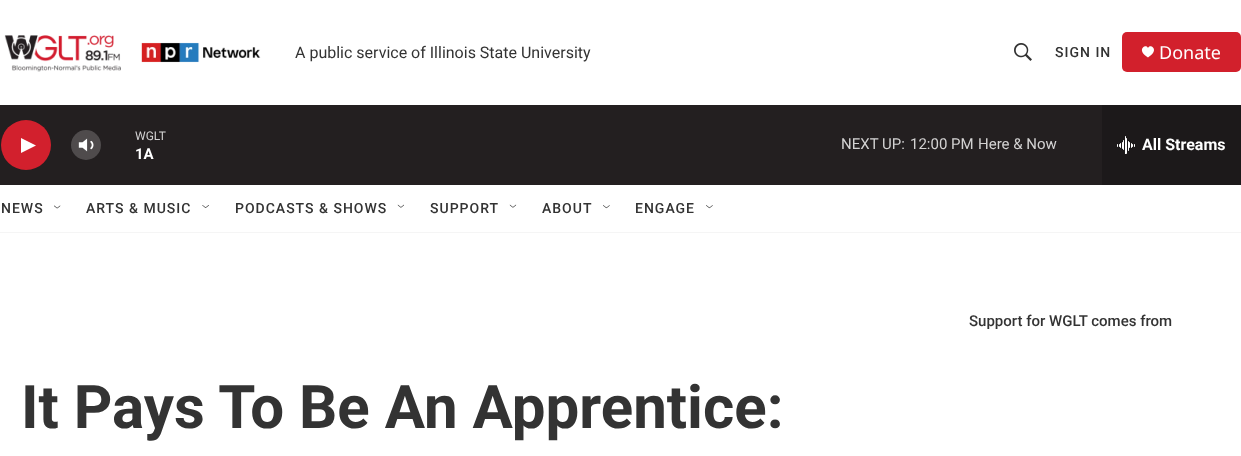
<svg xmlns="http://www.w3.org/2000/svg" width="1241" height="456">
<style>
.a{font:16px Roboto;fill:#333}
.b{font:500 14px Roboto;letter-spacing:1px;fill:#333}
.c{font:18px Noto Sans;fill:#fff}
.d{font:12px Roboto;fill:#d3d2d2}
.e{font:bold 15px 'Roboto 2';fill:#fff}
.f{font:15px Roboto;fill:#d3d2d2}
.g{font:bold 16px 'Roboto 2';fill:#fff}
.h{font:500 15px Roboto;fill:#333}
.i{font:bold 60px Roboto;fill:#333}
</style>
<rect width="100%" height="100%" fill="#fff"/>
<path fill="#f5f5f5" d="M0 232h1241v1H0z"/>
<image href="1.png" x="4" y="35" width="257" height="37"/>
<image href="2.png" x="1014" y="43" width="18" height="18"/>
<rect fill="#d2202c" x="1122" y="32" width="119" height="40" rx="5"/>
<path fill="#fff" d="M1148 48c-2-5-12.5 2 0 9.5c12.5-7.5 2-14.5 0-9.5z"/>
<path fill="#231f20" d="M0 105h1102v80H0z"/>
<circle fill="#d2202d" cx="26" cy="145" r="25"/>
<path fill="#fff" d="M21 138l15 7.5l-15 7.5z"/>
<image href="3.png" x="78" y="138" width="16" height="14"/>
<circle fill="#ffffff33" cx="86" cy="145" r="15"/>
<path fill="#1c191a" d="M1102 105h139v80H1102z"/>
<image href="4.png" x="1117" y="136" width="18" height="18"/>
<image href="5.png" x="54" y="205" width="7" height="4"/>
<image href="6.png" x="202" y="205" width="7" height="3"/>
<image href="7.png" x="397" y="204" width="7" height="4"/>
<image href="8.png" x="509" y="204" width="8" height="4"/>
<image href="9.png" x="603" y="205" width="7" height="4"/>
<image href="10.png" x="706" y="205" width="7" height="4"/>
<text class="a" x="295" y="58">A public service of Illinois State University</text>
<text class="b" x="1055" y="57">SIGN IN</text>
<text class="c" x="1159" y="59">Donate</text>
<text class="d" x="135" y="140">WGLT</text>
<text class="e" x="135" y="159">1A</text>
<text class="f" x="841" y="149">NEXT UP:</text>
<text class="f" x="910" y="149">12:00 PM</text>
<text class="f" x="978" y="149">Here &amp; Now</text>
<text class="g" x="1142" y="150">All Streams</text>
<text class="b" x="1" y="213">NEWS</text>
<text class="b" x="86" y="213">ARTS &amp; MUSIC</text>
<text class="b" x="235" y="213">PODCASTS &amp; SHOWS</text>
<text class="b" x="430" y="213">SUPPORT</text>
<text class="b" x="542" y="213">ABOUT</text>
<text class="b" x="635" y="213">ENGAGE</text>
<text class="h" x="969" y="326">Support for WGLT comes from</text>
<text class="i" x="21" y="428">It Pays To Be An Apprentice:</text>
</svg>
